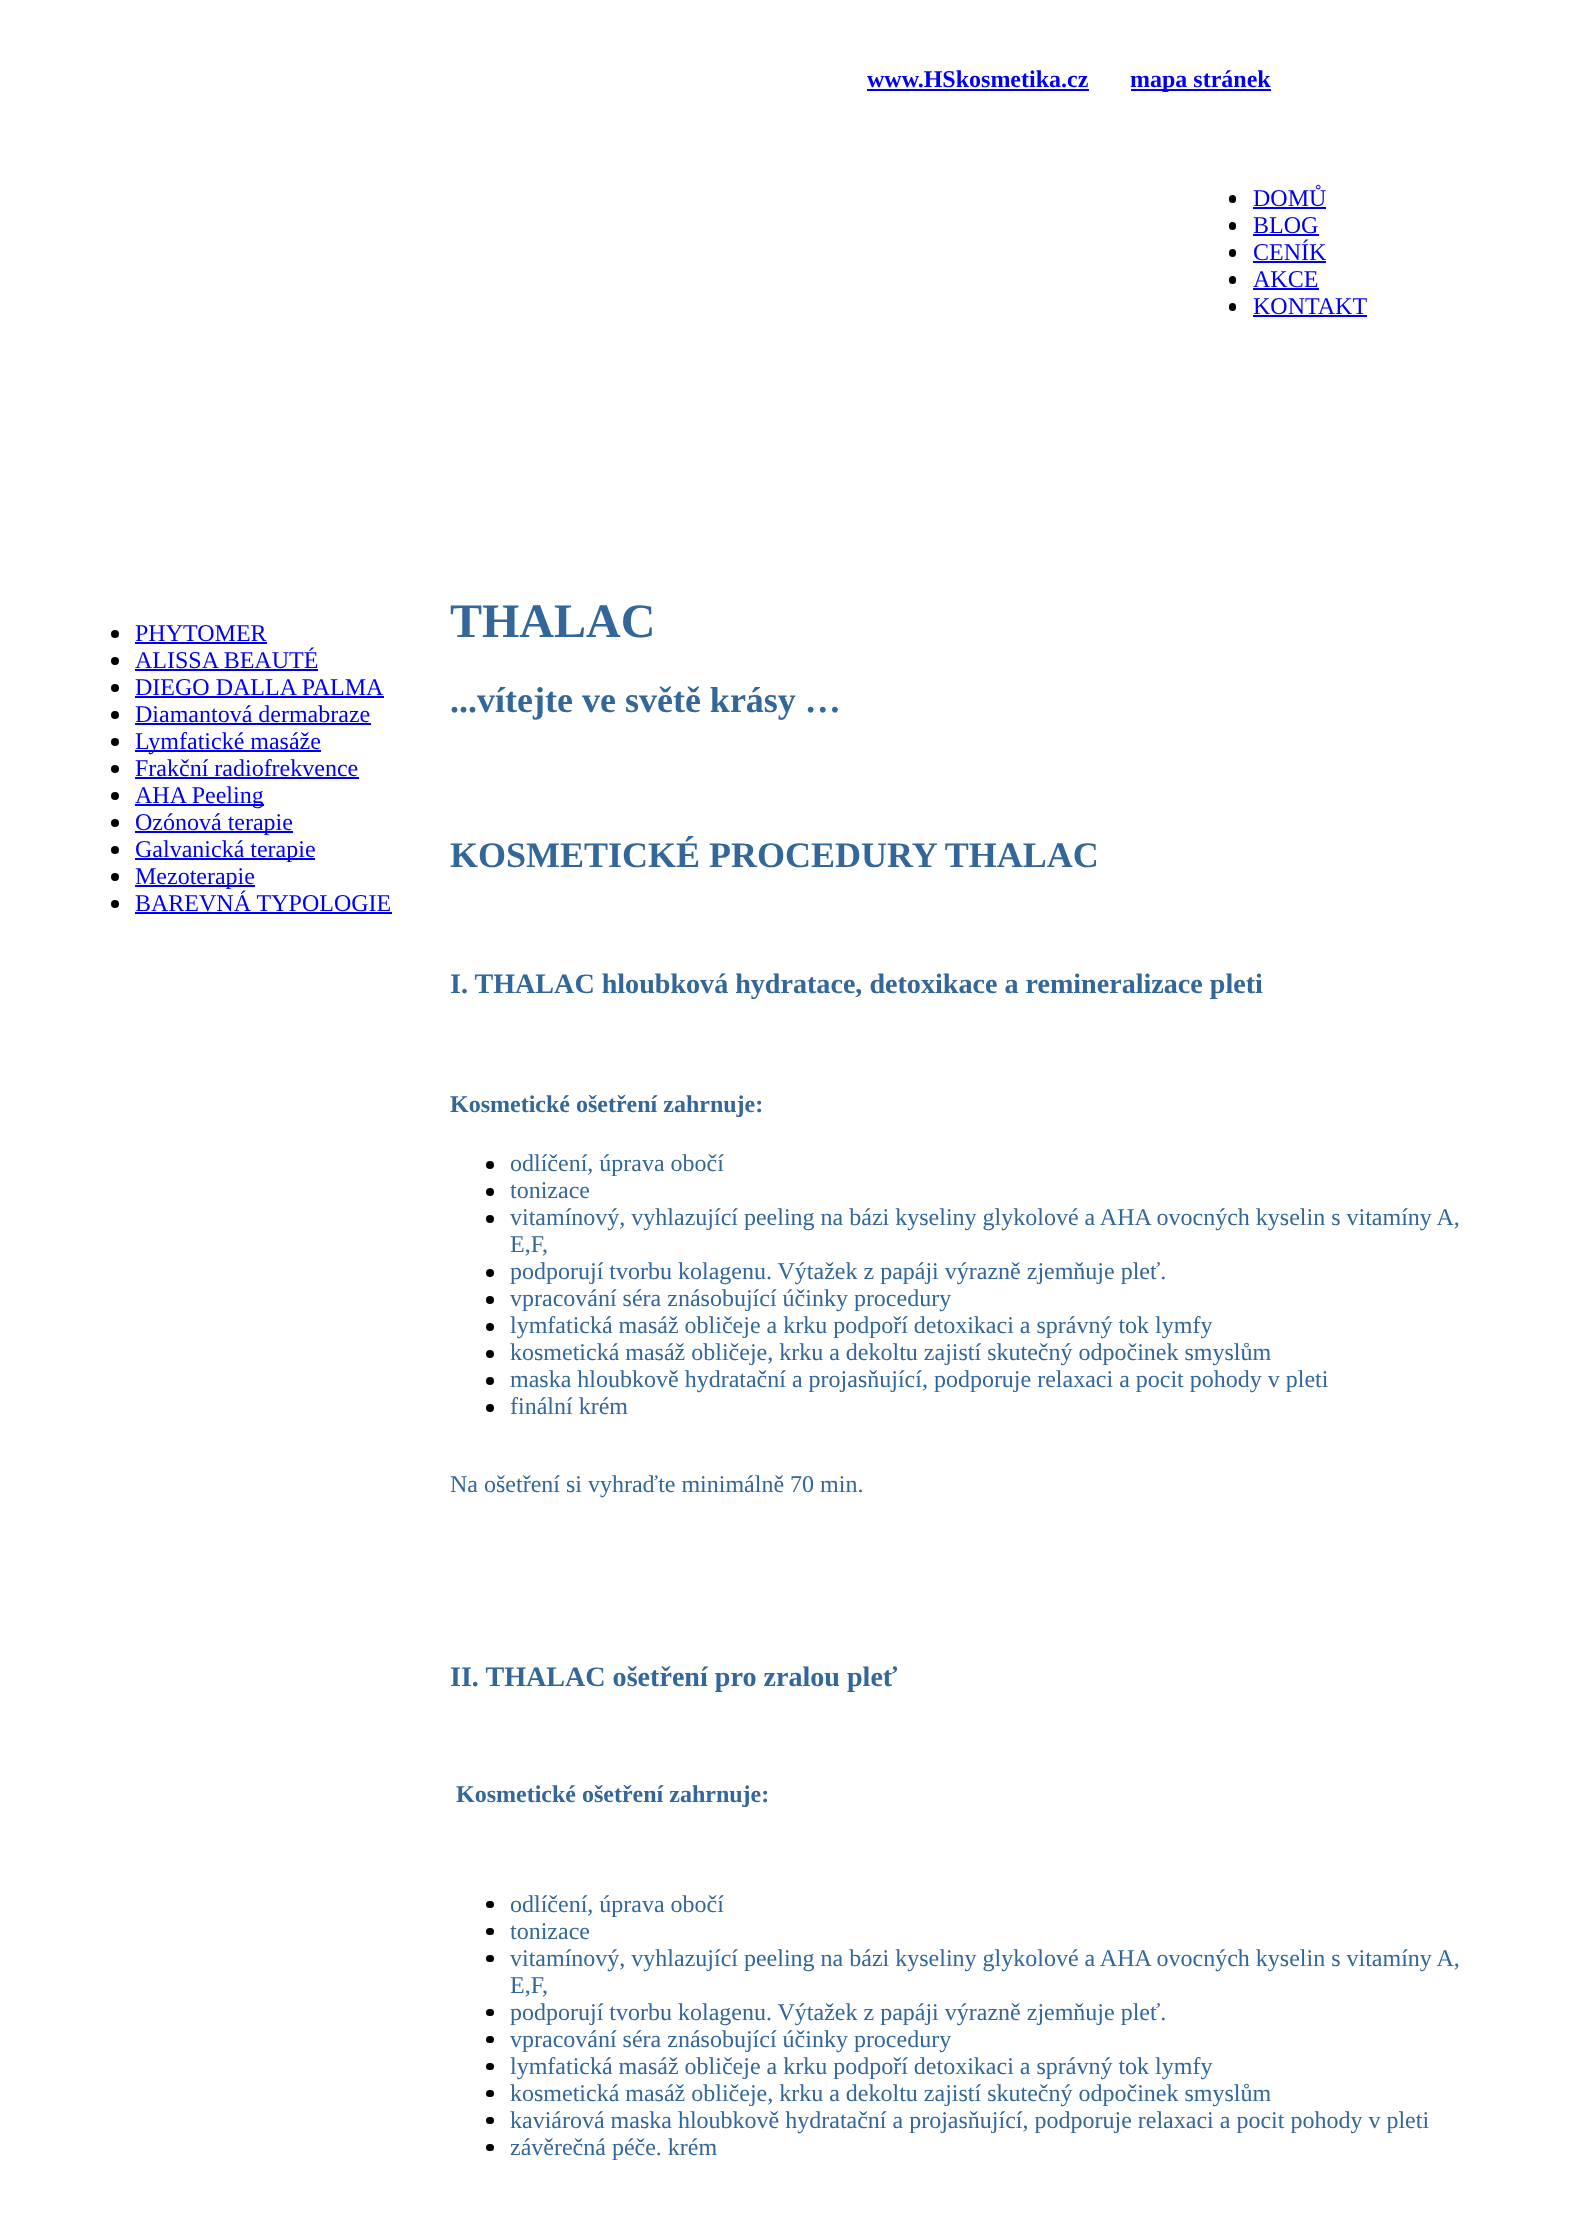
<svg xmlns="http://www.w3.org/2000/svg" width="1590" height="2215">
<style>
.a{font:bold 24px Liberation Serif;fill:#00e}
.b{font:24px Liberation Serif;fill:#00e}
.c{font:bold 48px Liberation Serif;fill:#369}
.d{font:bold 36px Liberation Serif;fill:#369}
.e{font:bold 28.1px Liberation Serif;fill:#369}
.f{font:bold 24px Liberation Serif;fill:#369}
.g{font:24px Liberation Serif;fill:#369}
</style>
<rect width="100%" height="100%" fill="#fff"/>
<path fill="#00e" d="M867 89h222v2H867z"/>
<path fill="#00e" d="M1131 89h140v2H1131z"/>
<rect fill="#000" x="1229" y="195" width="7" height="8" rx="3.5"/>
<path fill="#00e" d="M1253 207h73v2H1253z"/>
<rect fill="#000" x="1229" y="222" width="7" height="8" rx="3.5"/>
<path fill="#00e" d="M1253 234h66v2H1253z"/>
<rect fill="#000" x="1229" y="249" width="7" height="8" rx="3.5"/>
<path fill="#00e" d="M1253 261h73v2H1253z"/>
<rect fill="#000" x="1229" y="276" width="7" height="8" rx="3.5"/>
<path fill="#00e" d="M1253 288h66v2H1253z"/>
<rect fill="#000" x="1229" y="303" width="7" height="8" rx="3.5"/>
<path fill="#00e" d="M1253 315h114v2H1253z"/>
<circle fill="#000" cx="115" cy="634" r="4"/>
<path fill="#00e" d="M135 642h132v2H135z"/>
<circle fill="#000" cx="115" cy="661" r="4"/>
<path fill="#00e" d="M135 669h183v2H135z"/>
<circle fill="#000" cx="115" cy="688" r="4"/>
<path fill="#00e" d="M135 696h249v2H135z"/>
<circle fill="#000" cx="115" cy="715" r="4"/>
<path fill="#00e" d="M135 723h236v2H135z"/>
<circle fill="#000" cx="115" cy="742" r="4"/>
<path fill="#00e" d="M135 750h186v2H135z"/>
<circle fill="#000" cx="115" cy="769" r="4"/>
<path fill="#00e" d="M135 777h224v2H135z"/>
<circle fill="#000" cx="115" cy="796" r="4"/>
<path fill="#00e" d="M135 804h129v2H135z"/>
<circle fill="#000" cx="115" cy="823" r="4"/>
<path fill="#00e" d="M135 831h158v2H135z"/>
<circle fill="#000" cx="115" cy="850" r="4"/>
<path fill="#00e" d="M135 858h180v2H135z"/>
<circle fill="#000" cx="115" cy="877" r="4"/>
<path fill="#00e" d="M135 885h120v2H135z"/>
<circle fill="#000" cx="115" cy="904" r="4"/>
<path fill="#00e" d="M135 912h257v2H135z"/>
<circle fill="#000" cx="490" cy="1165" r="4"/>
<circle fill="#000" cx="490" cy="1192" r="4"/>
<circle fill="#000" cx="490" cy="1219" r="4"/>
<circle fill="#000" cx="490" cy="1273" r="4"/>
<circle fill="#000" cx="490" cy="1300" r="4"/>
<circle fill="#000" cx="490" cy="1327" r="4"/>
<circle fill="#000" cx="490" cy="1354" r="4"/>
<circle fill="#000" cx="490" cy="1381" r="4"/>
<circle fill="#000" cx="490" cy="1408" r="4"/>
<rect fill="#000" x="486" y="1901" width="8" height="7" rx="3.5"/>
<rect fill="#000" x="486" y="1928" width="8" height="7" rx="3.5"/>
<rect fill="#000" x="486" y="1955" width="8" height="7" rx="3.5"/>
<rect fill="#000" x="486" y="2009" width="8" height="7" rx="3.5"/>
<rect fill="#000" x="486" y="2036" width="8" height="7" rx="3.5"/>
<rect fill="#000" x="486" y="2063" width="8" height="7" rx="3.5"/>
<rect fill="#000" x="486" y="2090" width="8" height="7" rx="3.5"/>
<rect fill="#000" x="486" y="2117" width="8" height="7" rx="3.5"/>
<rect fill="#000" x="486" y="2144" width="8" height="7" rx="3.5"/>
<text class="a" x="867" y="87">www.HSkosmetika.cz</text>
<text class="a" x="1130" y="87">mapa stránek</text>
<text class="b" x="1253" y="206">DOMŮ</text>
<text class="b" x="1253" y="233">BLOG</text>
<text class="b" x="1253" y="260">CENÍK</text>
<text class="b" x="1253" y="287">AKCE</text>
<text class="b" x="1253" y="314">KONTAKT</text>
<text class="b" x="135" y="641">PHYTOMER</text>
<text class="b" x="135" y="668">ALISSA BEAUTÉ</text>
<text class="b" x="135" y="695">DIEGO DALLA PALMA</text>
<text class="b" x="135" y="722">Diamantová dermabraze</text>
<text class="b" x="135" y="749">Lymfatické masáže</text>
<text class="b" x="135" y="776">Frakční radiofrekvence</text>
<text class="b" x="135" y="803">AHA Peeling</text>
<text class="b" x="135" y="830">Ozónová terapie</text>
<text class="b" x="135" y="857">Galvanická terapie</text>
<text class="b" x="135" y="884">Mezoterapie</text>
<text class="b" x="135" y="911">BAREVNÁ TYPOLOGIE</text>
<text class="c" x="450" y="637">THALAC</text>
<text class="d" x="450" y="712">...vítejte ve světě krásy …</text>
<text class="d" x="450" y="867">KOSMETICKÉ PROCEDURY THALAC</text>
<text class="e" x="450" y="993">I. THALAC hloubková hydratace, detoxikace a remineralizace pleti</text>
<text class="f" x="450" y="1112">Kosmetické ošetření zahrnuje:</text>
<text class="g" x="510" y="1171">odlíčení, úprava obočí</text>
<text class="g" x="510" y="1198">tonizace</text>
<text class="g" x="510" y="1225">vitamínový, vyhlazující peeling na bázi kyseliny glykolové a AHA ovocných kyselin s vitamíny A,</text>
<text class="g" x="510" y="1252">E,F,</text>
<text class="g" x="510" y="1279">podporují tvorbu kolagenu. Výtažek z papáji výrazně zjemňuje pleť.</text>
<text class="g" x="510" y="1306">vpracování séra znásobující účinky procedury</text>
<text class="g" x="510" y="1333">lymfatická masáž obličeje a krku podpoří detoxikaci a správný tok lymfy</text>
<text class="g" x="510" y="1360">kosmetická masáž obličeje, krku a dekoltu zajistí skutečný odpočinek smyslům</text>
<text class="g" x="510" y="1387">maska hloubkově hydratační a projasňující, podporuje relaxaci a pocit pohody v pleti</text>
<text class="g" x="510" y="1414">finální krém</text>
<text class="g" x="450" y="1492">Na ošetření si vyhraďte minimálně 70 min.</text>
<text class="e" x="450" y="1686">II. THALAC ošetření pro zralou pleť</text>
<text class="f" x="456" y="1802">Kosmetické ošetření zahrnuje:</text>
<text class="g" x="510" y="1912">odlíčení, úprava obočí</text>
<text class="g" x="510" y="1939">tonizace</text>
<text class="g" x="510" y="1966">vitamínový, vyhlazující peeling na bázi kyseliny glykolové a AHA ovocných kyselin s vitamíny A,</text>
<text class="g" x="510" y="1993">E,F,</text>
<text class="g" x="510" y="2020">podporují tvorbu kolagenu. Výtažek z papáji výrazně zjemňuje pleť.</text>
<text class="g" x="510" y="2047">vpracování séra znásobující účinky procedury</text>
<text class="g" x="510" y="2074">lymfatická masáž obličeje a krku podpoří detoxikaci a správný tok lymfy</text>
<text class="g" x="510" y="2101">kosmetická masáž obličeje, krku a dekoltu zajistí skutečný odpočinek smyslům</text>
<text class="g" x="510" y="2128">kaviárová maska hloubkově hydratační a projasňující, podporuje relaxaci a pocit pohody v pleti</text>
<text class="g" x="510" y="2155">závěrečná péče. krém</text>
</svg>
